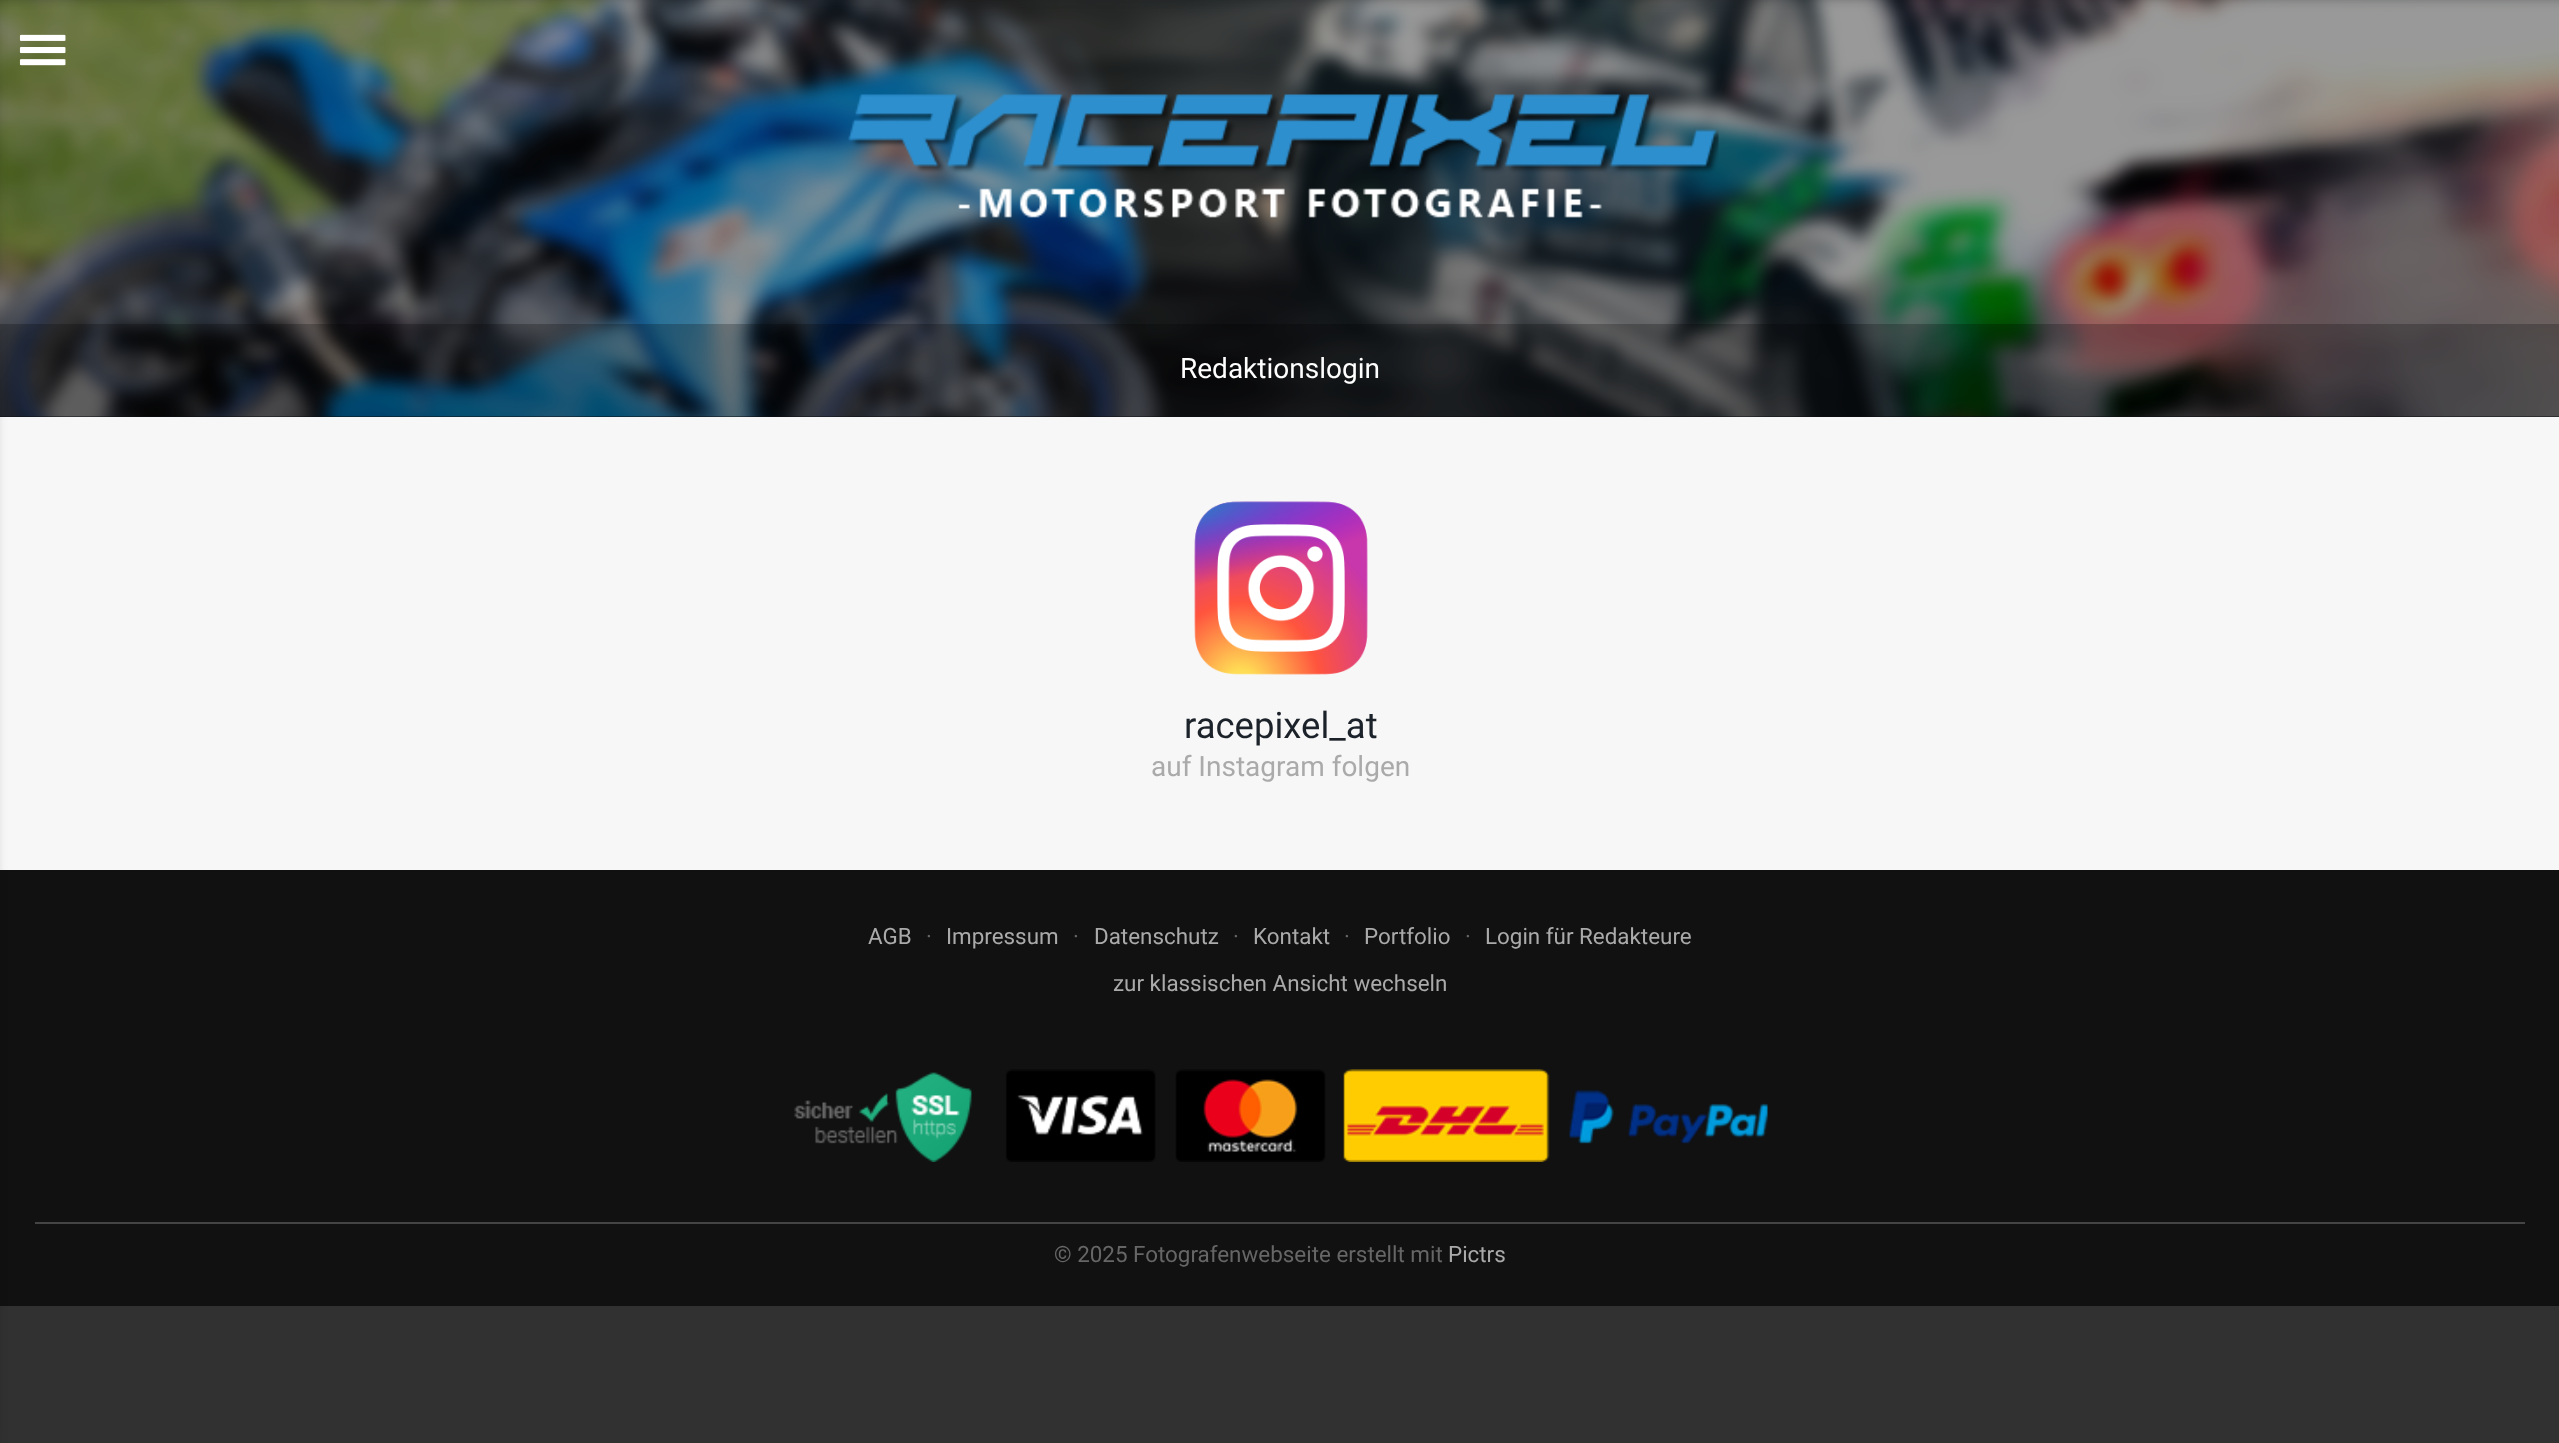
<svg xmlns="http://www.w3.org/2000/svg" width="2559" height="1443">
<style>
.a{font:28px Roboto;fill:#fff}
.b{font:36.5px Roboto;fill:#1c222a}
.c{font:28px Roboto;fill:#aaa}
.d{font:22.4px Roboto;fill:#aaa}
.e{font:22.4px Roboto;fill:#666}
</style>
<rect width="100%" height="100%" fill="#313131"/>
<path fill="#111419" d="M0 0h2559v417H0z"/>
<image href="2.png" x="0" y="0" width="2559" height="417"/>
<path fill="#0000003b" d="M0 324h2559v93H0z"/>
<path fill="#f7f7f7" d="M0 417h2559v453H0z"/>
<path fill="#111" d="M0 870h2559v436H0z"/>
<path fill="#000" filter="blur(9px)" d="M-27 0h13v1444H-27z"/>
<image href="1.png" x="19" y="34" width="47" height="32"/>
<image href="3.png" x="848" y="94" width="871" height="124"/>
<image href="4.png" x="1194" y="501" width="174" height="174"/>
<image href="5.png" x="794" y="1069" width="974" height="93"/>
<path fill="#444" d="M35 1222h2490v2H35z"/>
<text class="a" x="1180" y="378">Redaktionslogin</text>
<text class="b" x="1184" y="738">racepixel_at</text>
<text class="c" x="1151" y="776">auf Instagram folgen</text>
<text class="d" x="868" y="944">AGB</text>
<text class="e" x="926" y="944">·</text>
<text class="d" x="946" y="944">Impressum</text>
<text class="e" x="1073" y="944">·</text>
<text class="d" x="1094" y="944">Datenschutz</text>
<text class="e" x="1233" y="944">·</text>
<text class="d" x="1253" y="944">Kontakt</text>
<text class="e" x="1344" y="944">·</text>
<text class="d" x="1364" y="944">Portfolio</text>
<text class="e" x="1465" y="944">·</text>
<text class="d" x="1485" y="944">Login für Redakteure</text>
<text class="d" x="1113" y="991">zur klassischen Ansicht wechseln</text>
<text class="e" x="1054" y="1262">© 2025 Fotografenwebseite erstellt mit</text>
<text class="d" x="1448" y="1262">Pictrs</text>
</svg>
